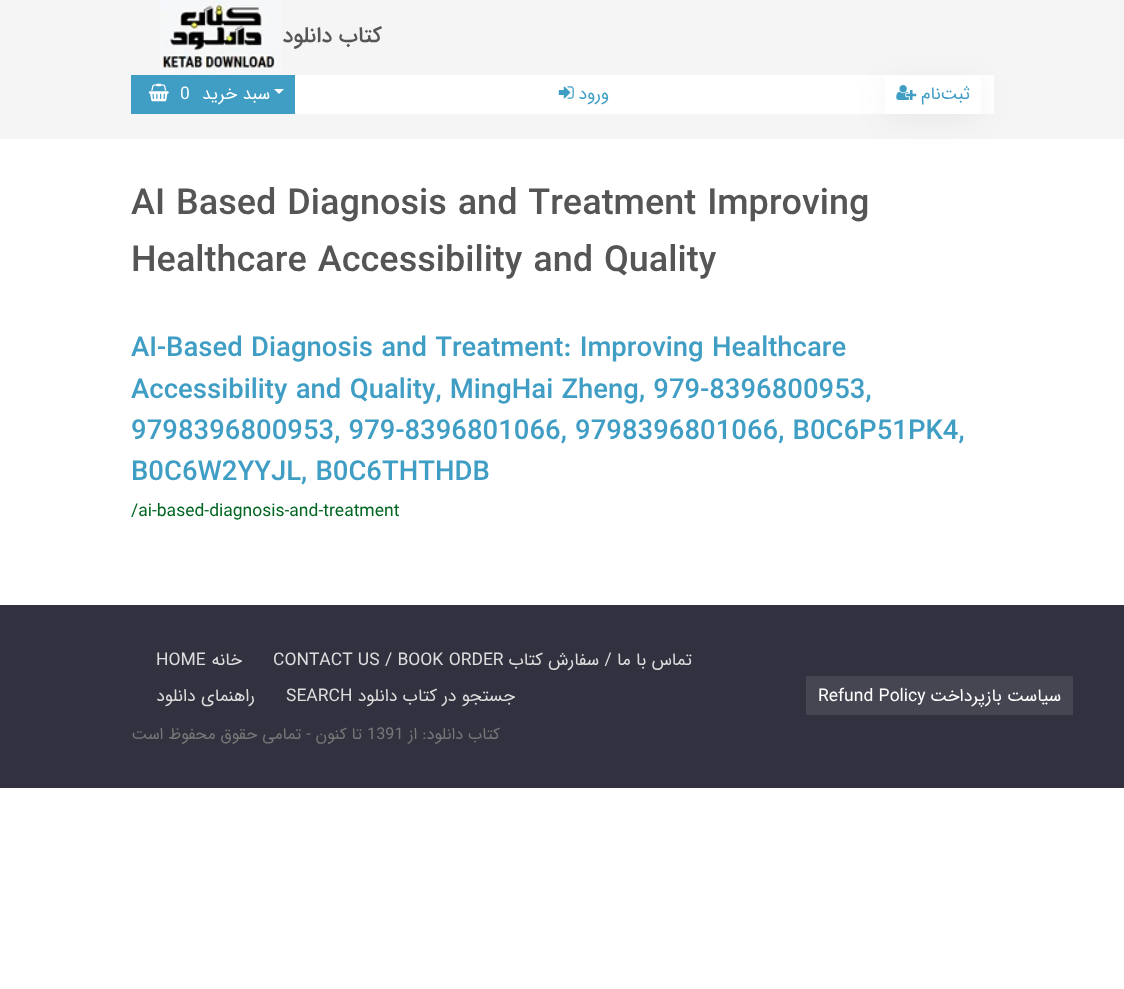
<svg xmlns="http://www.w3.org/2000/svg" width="1124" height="989">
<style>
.a{font:500 22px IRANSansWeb;direction:rtl;fill:#555}
.b{font:17.5px IRANSansWeb;fill:#fff}
.c{font:17.5px IRANSansWeb;direction:rtl;fill:#fff}
.d{font:17.5px IRANSansWeb;direction:rtl;fill:#409ec5}
.e{font:500 36px IRANSansWeb;fill:#555}
.f{font:500 27.5px IRANSansWeb;fill:#409ec5}
.g{font:17.5px IRANSansWeb;fill:#006621}
.h{font:17.5px IRANSansWeb;fill:#ddd}
.i{font:17.5px IRANSansWeb;direction:rtl;fill:#ddd}
.j{font:16.25px IRANSansWeb;direction:rtl;fill:#777}
.k{font:16.25px IRANSansWeb;fill:#777}
</style>
<rect width="100%" height="100%" fill="#fff"/>
<path fill="#f5f5f5" d="M0 0h1124v139H0z"/>
<image href="1.png" x="160" y="0" width="122" height="75"/>
<path fill="#fff" d="M295 75h699v39H295z"/>
<path fill="#409ec5" d="M131 75h164v39H131z"/>
<image href="2.png" x="148" y="83" width="21" height="19"/>
<path fill="#fff" d="M274 89h10l-5 5z"/>
<image href="3.png" x="558" y="86" width="16" height="13"/>
<path fill="#0000000d" filter="blur(15.5px)" d="M885 81h96v39H885z"/>
<path fill="#fff" d="M885 75h96v39H885z"/>
<image href="4.png" x="896" y="85" width="21" height="15"/>
<path fill="#31313f" d="M0 605h1124v183H0z"/>
<path fill="#464653" d="M806 676h267v39H806z"/>
<text class="a" x="382" y="42">کتاب دانلود</text>
<text class="b" x="180" y="99">0</text>
<text class="c" x="270" y="99">سبد خرید</text>
<text class="d" x="609" y="99">ورود</text>
<text class="d" x="970" y="99">ثبت‌نام</text>
<text class="e" x="131" y="214">AI Based Diagnosis and Treatment Improving</text>
<text class="e" x="131" y="271">Healthcare Accessibility and Quality</text>
<text class="f" x="131" y="356">AI-Based Diagnosis and Treatment: Improving Healthcare</text>
<text class="f" x="131" y="398">Accessibility and Quality, MingHai Zheng, 979-8396800953,</text>
<text class="f" x="131" y="439">9798396800953, 979-8396801066, 9798396801066, B0C6P51PK4,</text>
<text class="f" x="131" y="480">B0C6W2YYJL, B0C6THTHDB</text>
<text class="g" x="131" y="516">/ai-based-diagnosis-and-treatment</text>
<text class="h" x="156" y="665">HOME</text>
<text class="i" x="242" y="665">خانه</text>
<text class="h" x="273" y="665">CONTACT US / BOOK ORDER</text>
<text class="i" x="692" y="665">تماس با ما / سفارش کتاب</text>
<text class="i" x="255" y="701">راهنمای دانلود</text>
<text class="h" x="286" y="701">SEARCH</text>
<text class="i" x="515" y="701">جستجو در کتاب دانلود</text>
<text class="j" x="362" y="739">تا کنون - تمامی حقوق محفوظ است</text>
<text class="k" x="367" y="739">1391</text>
<text class="j" x="500" y="739">کتاب دانلود: از</text>
<text class="b" x="818" y="701">Refund Policy</text>
<text class="c" x="1061" y="701">سیاست بازپرداخت</text>
</svg>
